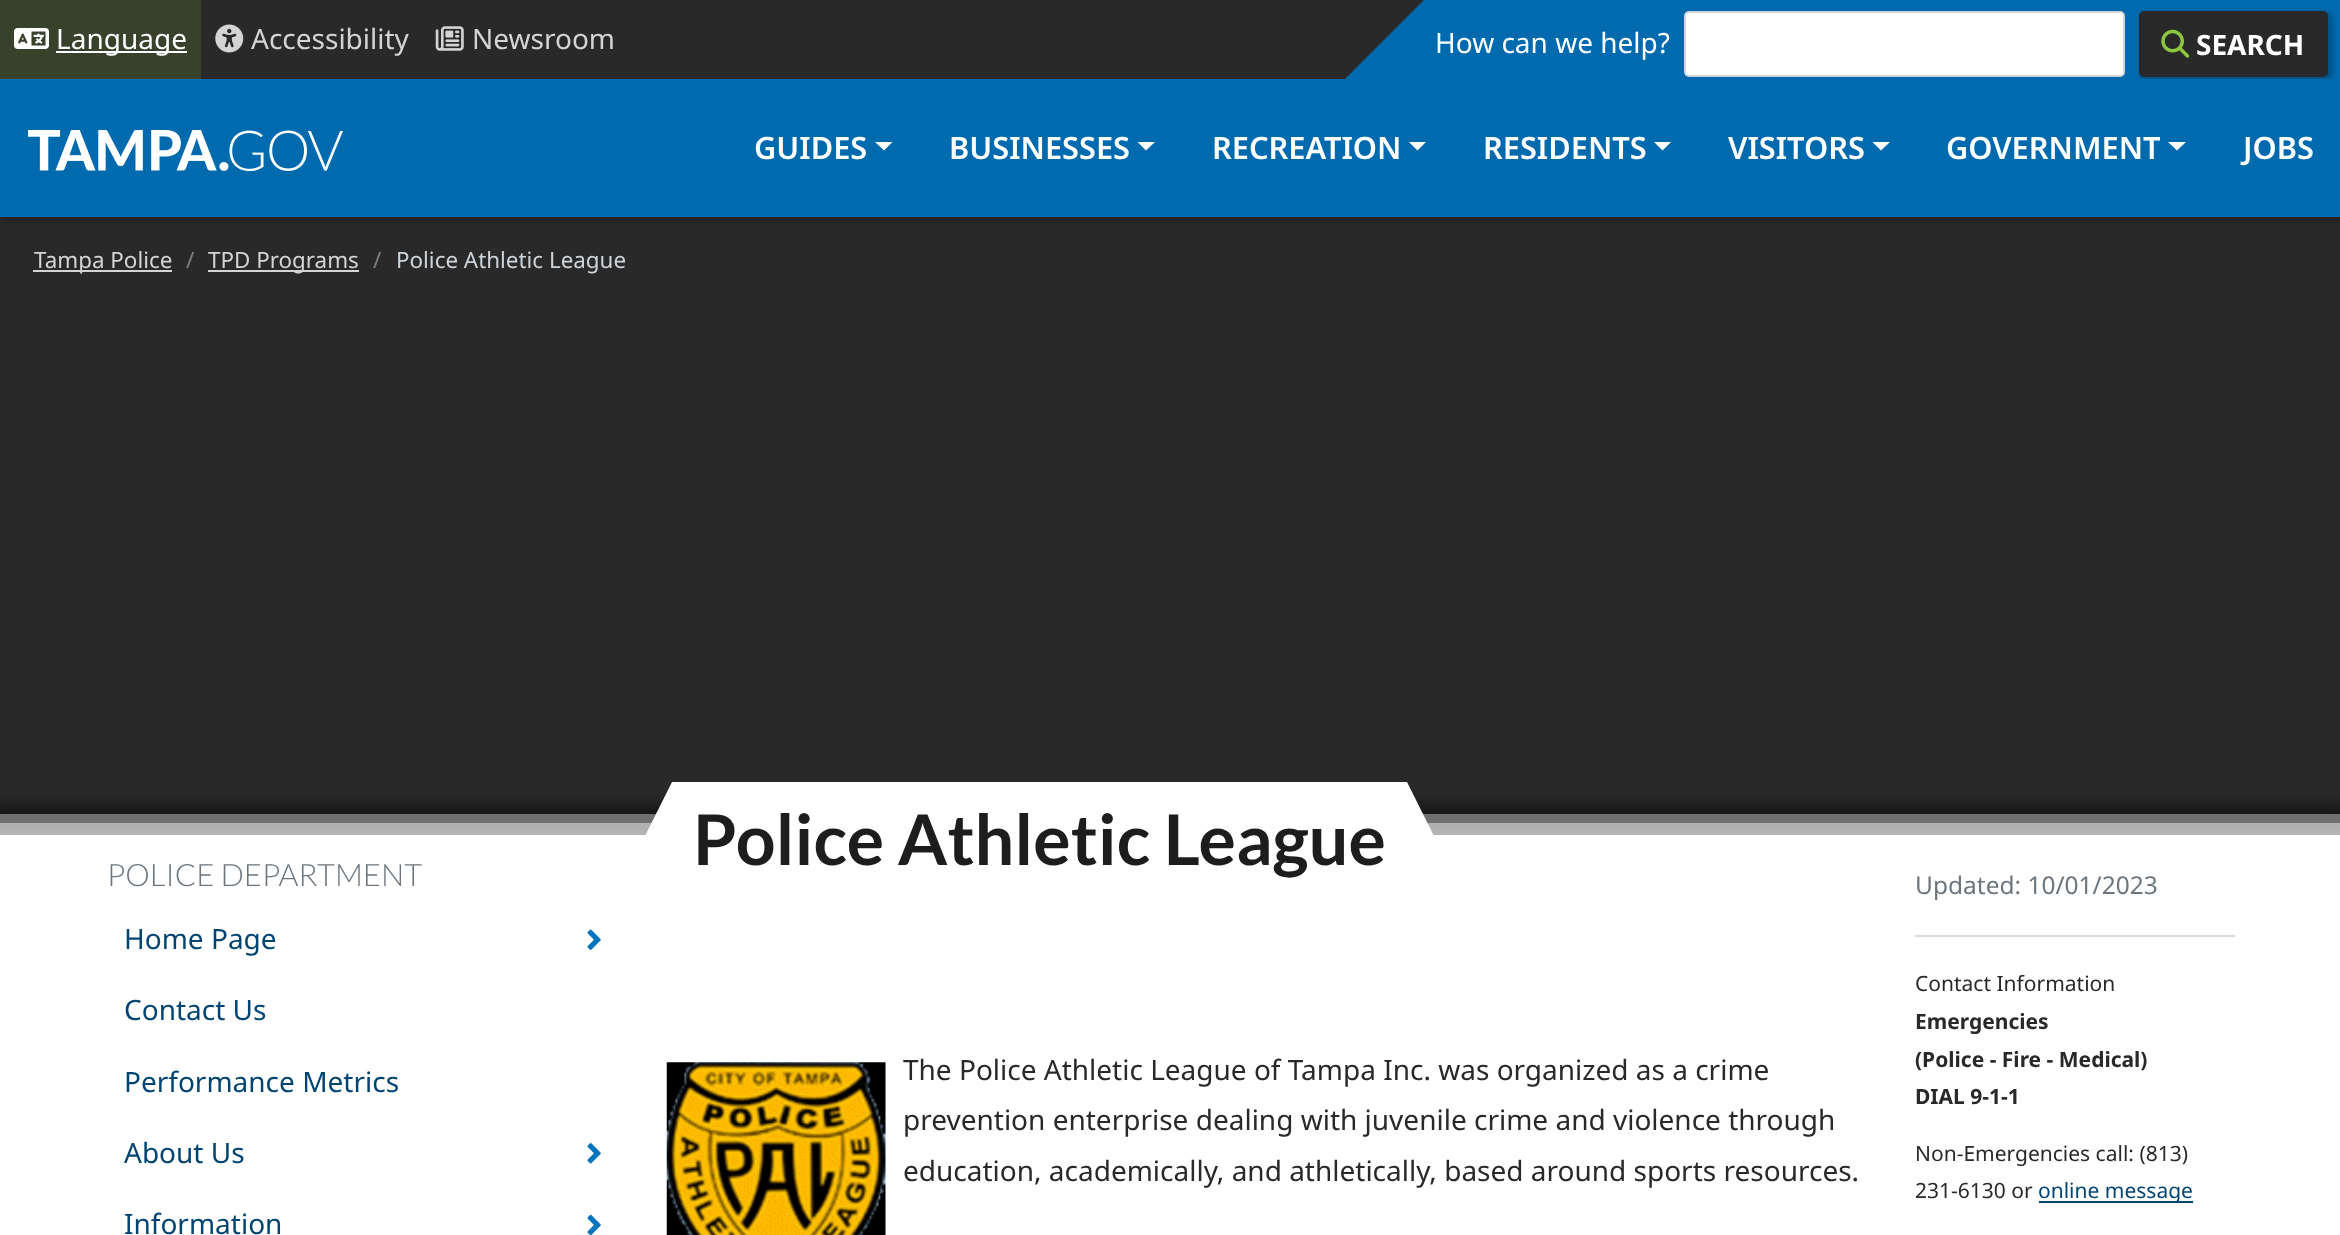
<svg xmlns="http://www.w3.org/2000/svg" width="2340" height="1235">
<style>
.a{font:28px Noto Sans;fill:#fff}
.b{font:28px Noto Sans;fill:#d4d4d4}
.c{font:bold 28px Noto Sans;fill:#fff}
.d{font:600 30.75px Noto Sans;fill:#fff}
.e{font:22.4px Noto Sans;fill:#d4d4d4}
.f{font:22.4px Noto Sans;fill:#7c7f82}
.g{font:22.4px Noto Sans;fill:#ced4da}
.h{font:300 30.75px Lato;fill:#6c757d}
.i{font:28px Noto Sans;fill:#004572}
.j{font:bold 70px Lato;fill:#1d1d1d}
.k{font:28px Noto Sans;fill:#292929}
.l{font:24.5px Noto Sans;fill:#6c757d}
.m{font:21px Noto Sans;fill:#292929}
.n{font:bold 21px Noto Sans;fill:#292929}
.o{font:21px Noto Sans;fill:#004572}
</style>
<defs>
<clipPath id="clip1"><path d="M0 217h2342v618H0z"/></clipPath>
<clipPath id="clip2"><path d="M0 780h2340v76h-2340zm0 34h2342v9h-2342z" clip-rule="evenodd"/></clipPath>
</defs>
<rect width="100%" height="100%" fill="#fff"/>
<path fill="#292929" d="M201 0h1223v79H201z"/>
<path fill="#38412c" d="M0 0h201v79H0z"/>
<image href="1.png" x="14" y="28" width="35" height="21"/>
<path fill="#fff" d="M56 51h131v2H56z"/>
<image href="2.png" x="215" y="24" width="29" height="29"/>
<image href="3.png" x="435" y="26" width="29" height="25"/>
<path fill="#006aaf" d="M1425 0h915v79H1425z"/>
<path fill="#006aaf" d="M1338 86l87-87v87z"/>
<rect fill="#fff" stroke="#ced4da" stroke-width="2" x="1685" y="12" width="439" height="64" rx="4"/>
<rect fill="#00000033" filter="blur(2px)" x="2140" y="12" width="193" height="70" rx="7"/>
<rect fill="#292929" stroke="#292929" stroke-width="2" x="2140" y="12" width="187" height="64" rx="4"/>
<image href="4.png" x="2161" y="29" width="29" height="29"/>
<path fill="#292929" d="M0 217h2340v618H0z"/>
<path fill="#00000021" filter="blur(2px)" d="M4 84h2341v138H4z"/>
<path fill="#006aaf" d="M0 79h2340v138H0z"/>
<image href="5.png" x="28" y="130" width="315" height="41"/>
<path fill="#fff" d="M875 142h17.5l-8.5 8.5z"/>
<path fill="#fff" d="M1137.5 142h17.5l-9 8.5z"/>
<path fill="#fff" d="M1409 142h17l-8.5 8.5z"/>
<path fill="#fff" d="M1654 142h17l-8.5 8.5z"/>
<path fill="#fff" d="M1872.5 142h17.5l-9 8.5z"/>
<path fill="#fff" d="M2168 142h18l-9 8.5z"/>
<path fill="#d4d4d4" d="M33 270h139v2H33z"/>
<path fill="#d4d4d4" d="M208 270h151v2H208z"/>
<g clip-path="url(#clip1)">
<g clip-path="url(#clip2)">
<path fill="#0000007d" filter="blur(8px)" d="M-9 805h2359v26H-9z"/>
</g>
</g>
<path fill="#ffffff54" d="M0 814h2340v9H0z"/>
<path fill="#ffffffa8" d="M0 823h2340v12H0z"/>
<image href="6.png" x="587" y="929" width="14" height="21"/>
<image href="7.png" x="587" y="1143" width="14" height="21"/>
<image href="8.png" x="587" y="1214" width="14" height="21"/>
<path fill="#fff" d="M637 852v51c0 3 2 5 5 5h795c3 0 5-2 5-5v-51l-35-70h-735z"/>
<image href="9.png" x="666" y="1062" width="220" height="173"/>
<path fill="#dadddf" d="M1915 935h320v2H1915z"/>
<path fill="#004572" d="M2039 1201h154v2H2039z"/>
<text class="a" x="56" y="49">Language</text>
<text class="b" x="251" y="49">Accessibility</text>
<text class="b" x="472" y="49">Newsroom</text>
<text class="a" x="1435" y="53">How can we help?</text>
<text class="c" x="2196" y="55">SEARCH</text>
<text class="d" x="754" y="159">GUIDES</text>
<text class="d" x="949" y="159">BUSINESSES</text>
<text class="d" x="1212" y="159">RECREATION</text>
<text class="d" x="1483" y="159">RESIDENTS</text>
<text class="d" x="1728" y="159">VISITORS</text>
<text class="d" x="1946" y="159">GOVERNMENT</text>
<text class="d" x="2243" y="159">JOBS</text>
<text class="e" x="34" y="268">Tampa Police</text>
<text class="f" x="186" y="268">/</text>
<text class="e" x="208" y="268">TPD Programs</text>
<text class="f" x="373" y="268">/</text>
<text class="g" x="396" y="268">Police Athletic League</text>
<text class="h" x="107" y="886">POLICE DEPARTMENT</text>
<text class="i" x="124" y="949">Home Page</text>
<text class="i" x="124" y="1020">Contact Us</text>
<text class="i" x="124" y="1092">Performance Metrics</text>
<text class="i" x="124" y="1163">About Us</text>
<text class="i" x="124" y="1234">Information</text>
<text class="j" x="693" y="865">Police Athletic League</text>
<text class="k" x="903" y="1080">The Police Athletic League of Tampa Inc. was organized as a crime</text>
<text class="k" x="903" y="1130">prevention enterprise dealing with juvenile crime and violence through</text>
<text class="k" x="903" y="1181">education, academically, and athletically, based around sports resources.</text>
<text class="l" x="1915" y="894">Updated: 10/01/2023</text>
<text class="m" x="1915" y="991">Contact Information</text>
<text class="n" x="1915" y="1029">Emergencies</text>
<text class="n" x="1915" y="1067">(Police - Fire - Medical)</text>
<text class="n" x="1915" y="1104">DIAL 9-1-1</text>
<text class="m" x="1915" y="1161">Non-Emergencies call: (813)</text>
<text class="m" x="1915" y="1198">231-6130 or</text>
<text class="o" x="2038" y="1198">online message</text>
</svg>
